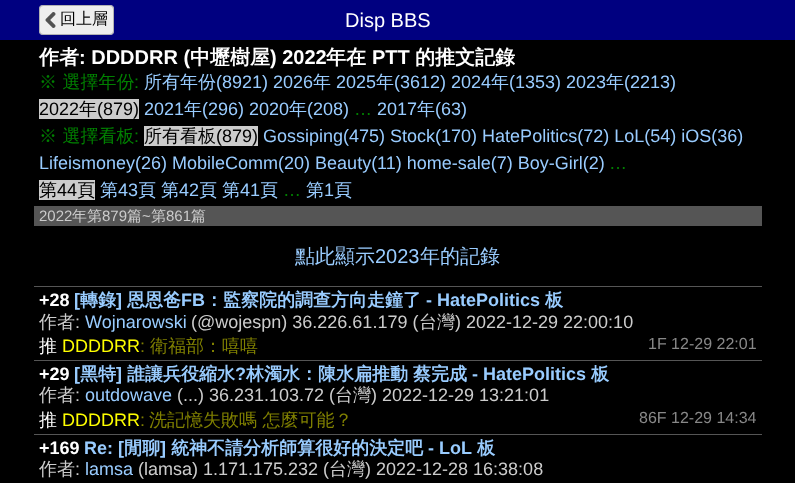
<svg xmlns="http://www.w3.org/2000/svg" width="795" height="483">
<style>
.a{font:500 16px WenQuanYi Zen Hei;fill:#000}
.b{font:20px Liberation Sans;fill:#fff}
.c{font:bold 20px WenQuanYi Zen Hei;fill:#fff}
.d{font:bold 20px Liberation Sans;fill:#fff}
.e{font:500 18px WenQuanYi Zen Hei;fill:#008000}
.f{font:18px Liberation Sans;fill:#008000}
.g{font:500 18px WenQuanYi Zen Hei;fill:#9cf}
.h{font:18px Liberation Sans;fill:#9cf}
.i{font:18px Liberation Sans;fill:#000}
.j{font:500 18px WenQuanYi Zen Hei;fill:#000}
.k{font:15px Liberation Sans;fill:#ccc}
.l{font:500 15px WenQuanYi Zen Hei;fill:#ccc}
.m{font:500 20px WenQuanYi Zen Hei;fill:#9cf}
.n{font:20px Liberation Sans;fill:#9cf}
.o{font:bold 18px Liberation Sans;fill:#fff}
.p{font:bold 18px Liberation Sans;fill:#9cf}
.q{font:bold 18px WenQuanYi Zen Hei;fill:#9cf}
.r{font:500 18px WenQuanYi Zen Hei;fill:#ccc}
.s{font:18px Liberation Sans;fill:#ccc}
.t{font:500 18px WenQuanYi Zen Hei;fill:#fff}
.u{font:18px Liberation Sans;fill:#ff0}
.v{font:18px Liberation Sans;fill:#808000}
.w{font:500 18px WenQuanYi Zen Hei;fill:#808000}
.x{font:16px Liberation Sans;fill:#888}
</style>
<rect width="100%" height="100%" fill="#000"/>
<path fill="#000080" d="M0 0h795v40H0z"/>
<rect fill="#eee" x="39" y="5" width="75" height="30" rx="4"/>
<image href="1.png" x="45" y="12" width="11" height="16"/>
<rect fill="none" stroke="#00000040" x="39.5" y="5.5" width="74" height="29" rx="3.5"/>
<path fill="#555" d="M34 206h728v20H34z"/>
<path fill="#ccc" d="M39 99h100v20H39z"/>
<path fill="#ccc" d="M144 126h114v20H144z"/>
<path fill="#ccc" d="M39 180h56v20H39z"/>
<path fill="#555" d="M34 286h728v1H34z"/>
<path fill="#555" d="M34 360h728v1H34z"/>
<path fill="#555" d="M34 434h728v1H34z"/>
<text class="a" x="60" y="24">回上層</text>
<text class="b" x="345" y="27">Disp BBS</text>
<text class="c" x="39" y="64">作者</text>
<text class="d" x="79" y="64">: DDDDRR (</text>
<text class="c" x="190" y="64">中壢樹屋</text>
<text class="d" x="270" y="64">) 2022</text>
<text class="c" x="326" y="64">年在</text>
<text class="d" x="372" y="64">PTT</text>
<text class="c" x="415" y="64">的推文記錄</text>
<text class="e" x="39" y="88">※ 選擇年份</text>
<text class="f" x="134" y="88">:</text>
<text class="g" x="144" y="88">所有年份</text>
<text class="h" x="216" y="88">(8921) 2026</text>
<text class="g" x="313" y="88">年</text>
<text class="h" x="336" y="88">2025</text>
<text class="g" x="376" y="88">年</text>
<text class="h" x="394" y="88">(3612) 2024</text>
<text class="g" x="491" y="88">年</text>
<text class="h" x="509" y="88">(1353) 2023</text>
<text class="g" x="606" y="88">年</text>
<text class="h" x="624" y="88">(2213)</text>
<text class="i" x="39" y="115">2022</text>
<text class="j" x="79" y="115">年</text>
<text class="i" x="97" y="115">(879)</text>
<text class="h" x="144" y="115">2021</text>
<text class="g" x="184" y="115">年</text>
<text class="h" x="202" y="115">(296) 2020</text>
<text class="g" x="289" y="115">年</text>
<text class="h" x="307" y="115">(208)</text>
<text class="f" x="354" y="115">…</text>
<text class="h" x="377" y="115">2017</text>
<text class="g" x="417" y="115">年</text>
<text class="h" x="435" y="115">(63)</text>
<text class="e" x="39" y="142">※ 選擇看板</text>
<text class="f" x="134" y="142">:</text>
<text class="j" x="144" y="142">所有看板</text>
<text class="i" x="216" y="142">(879)</text>
<text class="h" x="263" y="142">Gossiping(475) Stock(170) HatePolitics(72) LoL(54) iOS(36)</text>
<text class="h" x="39" y="169">Lifeismoney(26) MobileComm(20) Beauty(11) home-sale(7) Boy-Girl(2)</text>
<text class="f" x="609" y="169">…</text>
<text class="j" x="39" y="196">第</text>
<text class="i" x="57" y="196">44</text>
<text class="j" x="77" y="196">頁</text>
<text class="g" x="100" y="196">第</text>
<text class="h" x="118" y="196">43</text>
<text class="g" x="138" y="196">頁</text>
<text class="g" x="161" y="196">第</text>
<text class="h" x="179" y="196">42</text>
<text class="g" x="199" y="196">頁</text>
<text class="g" x="222" y="196">第</text>
<text class="h" x="240" y="196">41</text>
<text class="g" x="260" y="196">頁</text>
<text class="f" x="283" y="196">…</text>
<text class="g" x="306" y="196">第</text>
<text class="h" x="324" y="196">1</text>
<text class="g" x="334" y="196">頁</text>
<text class="k" x="39" y="221">2022</text>
<text class="l" x="72" y="221">年第</text>
<text class="k" x="102" y="221">879</text>
<text class="l" x="127" y="221">篇</text>
<text class="k" x="142" y="221">~</text>
<text class="l" x="151" y="221">第</text>
<text class="k" x="166" y="221">861</text>
<text class="l" x="191" y="221">篇</text>
<text class="m" x="295" y="263">點此顯示</text>
<text class="n" x="375" y="263">2023</text>
<text class="m" x="420" y="263">年的記錄</text>
<text class="o" x="39" y="306">+28</text>
<text class="p" x="74" y="306">[</text>
<text class="q" x="80" y="306">轉錄</text>
<text class="p" x="116" y="306">]</text>
<text class="q" x="127" y="306">恩恩爸</text>
<text class="p" x="181" y="306">FB</text>
<text class="q" x="205" y="306">：監察院的調查方向走鐘了</text>
<text class="p" x="426" y="306">- HatePolitics</text>
<text class="q" x="545" y="306">板</text>
<text class="r" x="39" y="328">作者</text>
<text class="s" x="75" y="328">:</text>
<text class="h" x="85" y="328">Wojnarowski</text>
<text class="s" x="191" y="328">(@wojespn) 36.226.61.179 (</text>
<text class="r" x="419" y="328">台灣</text>
<text class="s" x="455" y="328">) 2022-12-29 22:00:10</text>
<text class="t" x="39" y="352">推</text>
<text class="u" x="62" y="352">DDDDRR</text>
<text class="v" x="140" y="352">:</text>
<text class="w" x="150" y="352">衛福部：嘻嘻</text>
<text class="x" x="648" y="349">1F 12-29 22:01</text>
<text class="o" x="39" y="380">+29</text>
<text class="p" x="74" y="380">[</text>
<text class="q" x="80" y="380">黑特</text>
<text class="p" x="116" y="380">]</text>
<text class="q" x="127" y="380">誰讓兵役縮水</text>
<text class="p" x="235" y="380">?</text>
<text class="q" x="246" y="380">林濁水：陳水扁推動</text>
<text class="q" x="413" y="380">蔡完成</text>
<text class="p" x="472" y="380">- HatePolitics</text>
<text class="q" x="591" y="380">板</text>
<text class="r" x="39" y="401">作者</text>
<text class="s" x="75" y="401">:</text>
<text class="h" x="85" y="401">outdowave</text>
<text class="s" x="177" y="401">(...) 36.231.103.72 (</text>
<text class="r" x="335" y="401">台灣</text>
<text class="s" x="371" y="401">) 2022-12-29 13:21:01</text>
<text class="t" x="39" y="426">推</text>
<text class="u" x="62" y="426">DDDDRR</text>
<text class="v" x="140" y="426">:</text>
<text class="w" x="149" y="426">洗記憶失敗嗎 怎麼可能？</text>
<text class="x" x="639" y="423">86F 12-29 14:34</text>
<text class="o" x="39" y="454">+169</text>
<text class="p" x="84" y="454">Re: [</text>
<text class="q" x="124" y="454">閒聊</text>
<text class="p" x="160" y="454">]</text>
<text class="q" x="171" y="454">統神不請分析師算很好的決定吧</text>
<text class="p" x="428" y="454">- LoL</text>
<text class="q" x="477" y="454">板</text>
<text class="r" x="39" y="475">作者</text>
<text class="s" x="75" y="475">:</text>
<text class="h" x="85" y="475">lamsa</text>
<text class="s" x="138" y="475">(lamsa) 1.171.175.232 (</text>
<text class="r" x="329" y="475">台灣</text>
<text class="s" x="365" y="475">) 2022-12-28 16:38:08</text>
</svg>
